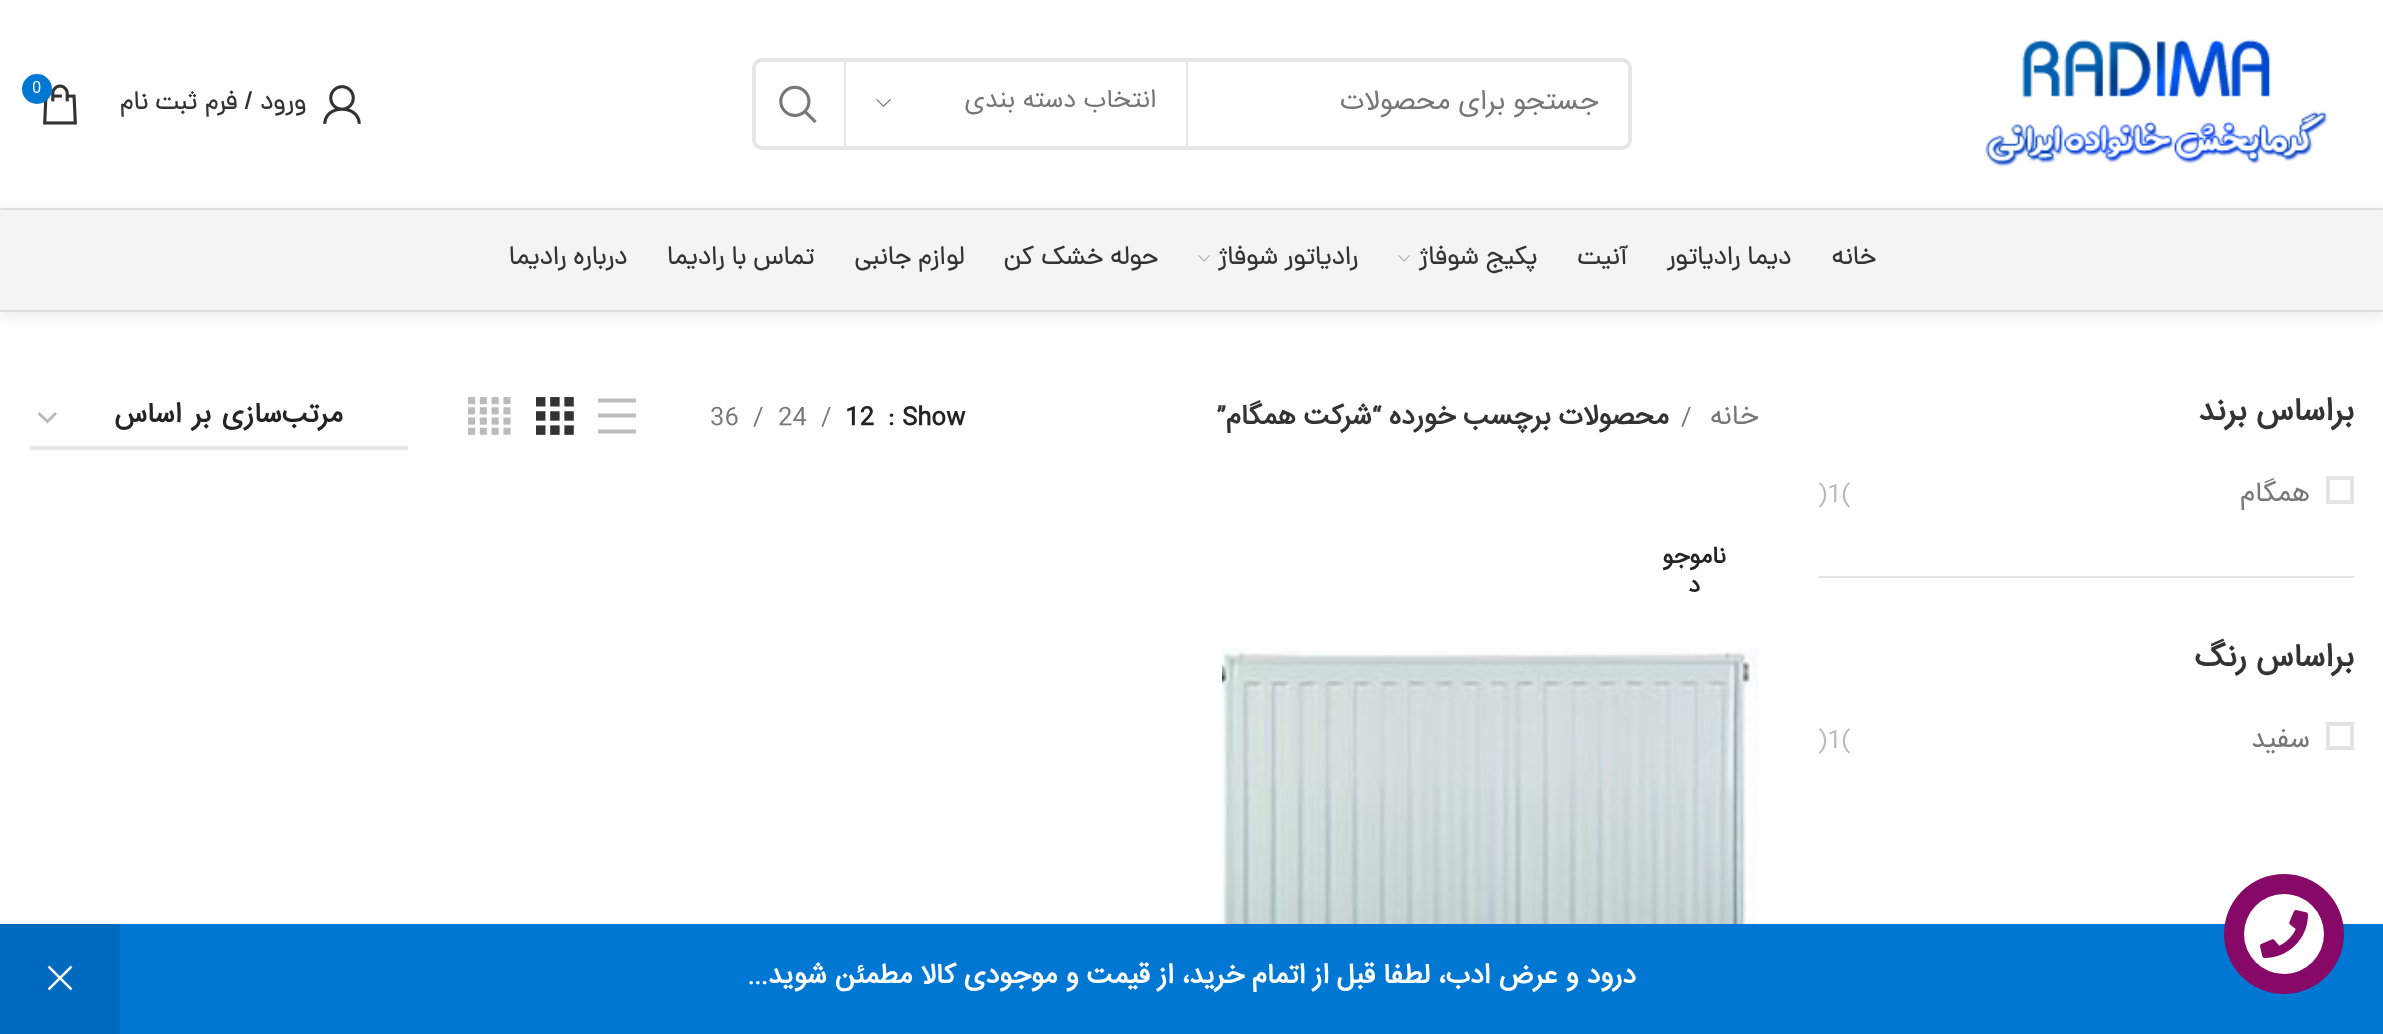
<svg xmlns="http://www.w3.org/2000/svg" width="2383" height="1034">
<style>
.a{font:28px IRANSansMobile;direction:rtl;fill:#777}
.b{font:26px IRANSansMobile;direction:rtl;fill:#777}
.c{font:18px IRANSansMobile;fill:#fff}
.d{font:bold 26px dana;direction:rtl;fill:#333}
.e{font:bold 32px IRANSansMobile;direction:rtl;fill:#333}
.f{font:28px IRANSansMobile;fill:#bbb}
.g{font:28px IRANSansMobile;fill:#777}
.h{font:bold 28px IRANSansMobile;direction:rtl;fill:#333}
.i{font:bold 28px IRANSansMobile;fill:#242424}
.j{font:bold 28px IRANSansMobile;direction:rtl;fill:#242424}
.k{font:bold 24px IRANSansMobile;direction:rtl;fill:#242424}
.l{font:bold 28px IRANSansMobile;direction:rtl;fill:#fff}
</style>
<rect width="100%" height="100%" fill="#fff"/>
<path fill="#e6e6e6" d="M0 208h2383v2H0z"/>
<image href="1.png" x="1985" y="39" width="343" height="128"/>
<rect fill="none" stroke="#e6e6e6" stroke-width="4" x="754" y="60" width="876" height="88" rx="8"/>
<path fill="#e6e6e6" d="M1186 62h2v84H1186z"/>
<path fill="#e6e6e6" d="M844 62h2v84H844z"/>
<image href="2.png" x="876" y="99" width="15" height="8"/>
<image href="3.png" x="779" y="85" width="38" height="38"/>
<image href="4.png" x="43" y="84" width="34" height="41"/>
<circle fill="#0077d3" cx="37" cy="89" r="15"/>
<image href="5.png" x="323" y="85" width="38" height="39"/>
<path fill="#0000001a" filter="blur(8px)" d="M0 212h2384v102H0z"/>
<path fill="#f4f4f4" d="M0 210h2383v100H0z"/>
<path fill="#ddd" d="M0 310h2383v2H0z"/>
<image href="6.png" x="1398" y="255" width="12" height="7"/>
<image href="6.png" x="1198" y="255" width="12" height="7"/>
<path fill="#e4e4e4" d="M1818 576h536v2H1818z"/>
<path fill="none" stroke="#e4e4e4" stroke-width="4" d="M2328 478h24v24H2328z"/>
<path fill="none" stroke="#e4e4e4" stroke-width="4" d="M2328 724h24v24H2328z"/>
<path fill="#bbb" d="M598 398.5v4h38v-4zm0 31v4h38v-4zm38-16h-38v4h38z"/>
<image href="7.png" x="536" y="397" width="38" height="38"/>
<image href="8.png" x="468" y="397" width="43" height="38"/>
<path fill="none" stroke="#bbb" stroke-width="2.9" d="M38.5 413l9 8.5l8.5-8.5"/>
<path fill="#e6e6e6" d="M30 446h378v4H30z"/>
<image href="9.png" x="1222" y="648" width="536" height="276"/>
<path fill="#0077d3" d="M120 924h2263v110H120z"/>
<circle fill="#860968" cx="2284" cy="934" r="60"/>
<circle fill="#fff" cx="2284" cy="934" r="40"/>
<image href="10.png" x="2260" y="910" width="48" height="48"/>
<path fill="#006bbe" d="M0 924h120v110H0z"/>
<image href="11.png" x="47" y="965" width="26" height="26"/>
<text class="a" x="1598" y="109">جستجو برای محصولات</text>
<text class="b" x="1156" y="107">انتخاب دسته بندی</text>
<text class="c" x="32" y="92">0</text>
<text class="d" x="306" y="109">ورود / فرم ثبت نام</text>
<text class="d" x="1876" y="264">خانه</text>
<text class="d" x="1791" y="264">دیما رادیاتور</text>
<text class="d" x="1627" y="264">آنیت</text>
<text class="d" x="1537" y="264">پکیج شوفاژ</text>
<text class="d" x="1358" y="264">رادیاتور شوفاژ</text>
<text class="d" x="1158" y="264">حوله خشک کن</text>
<text class="d" x="964" y="264">لوازم جانبی</text>
<text class="d" x="814" y="264">تماس با رادیما</text>
<text class="d" x="627" y="264">درباره رادیما</text>
<text class="e" x="2354" y="420">براساس برند</text>
<text class="a" x="2310" y="501">همگام</text>
<text class="f" x="1818" y="501">)1(</text>
<text class="e" x="2354" y="666">براساس رنگ</text>
<text class="a" x="2310" y="747">سفید</text>
<text class="f" x="1818" y="747">)1(</text>
<text class="a" x="1758" y="424">خانه</text>
<text class="g" x="1681" y="424">/</text>
<text class="h" x="1669" y="424">محصولات برچسب خورده “شرکت همگام”</text>
<text class="i" x="902" y="424">Show</text>
<text class="i" x="888" y="424">:</text>
<text class="i" x="845" y="424">12</text>
<text class="g" x="821" y="424">/</text>
<text class="g" x="778" y="424">24</text>
<text class="g" x="753" y="424">/</text>
<text class="g" x="710" y="424">36</text>
<text class="j" x="343" y="422" word-spacing="3">مرتب‌سازی بر اساس</text>
<text class="k" x="1726" y="563">ناموجو</text>
<text class="k" x="1700" y="592">د</text>
<text class="l" x="1636" y="983">درود و عرض ادب، لطفا قبل از اتمام خرید، از قیمت و موجودی کالا مطمئن شوید...</text>
</svg>
